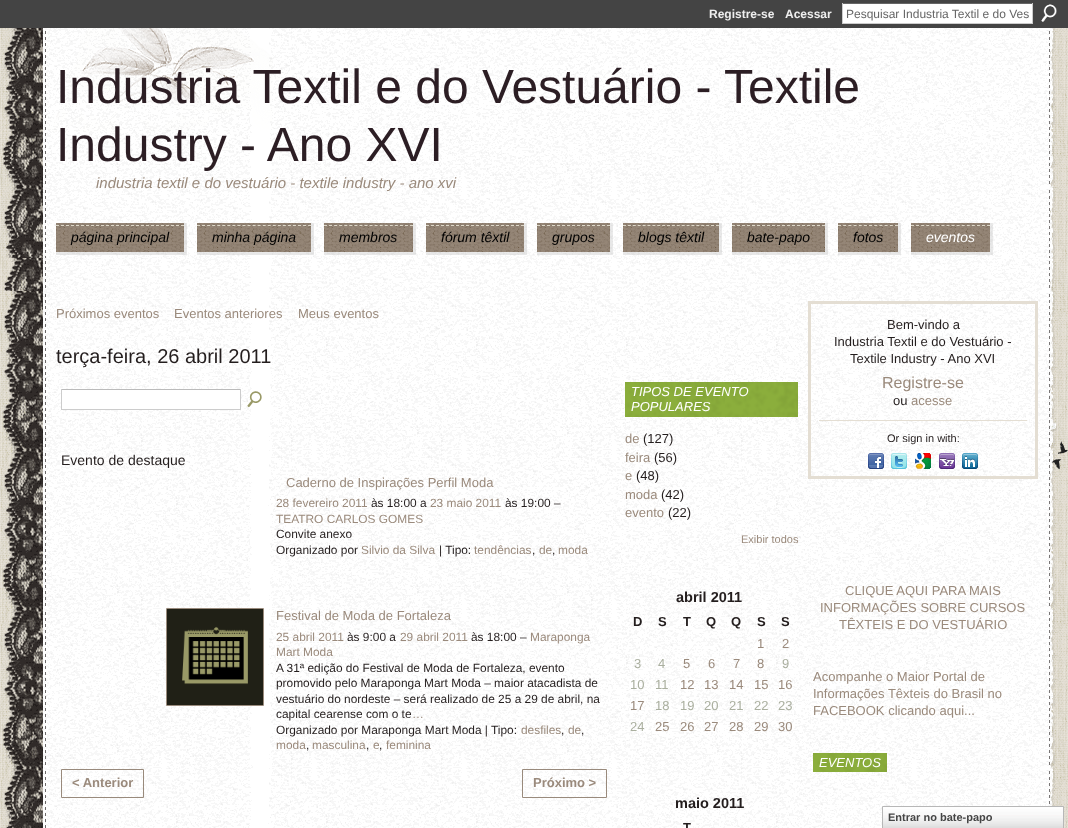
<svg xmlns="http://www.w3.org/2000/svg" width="1068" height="828">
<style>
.a{font:bold 12px Liberation Sans;fill:#eee}
.b{font:12px Liberation Sans;fill:#666}
.c{font:48px Liberation Sans;fill:#2c1e24}
.d{font:italic 15px Liberation Sans;fill:#9a8a7c}
.e{font:italic 14px Liberation Sans;fill:#000}
.f{font:italic 14px Liberation Sans;fill:#fff}
.g{font:13px Liberation Sans;fill:#9a8a7c}
.h{font:20px Liberation Sans;fill:#241e1e}
.i{font:14px Liberation Sans;fill:#241e1e}
.j{font:11.9px Liberation Sans;fill:#9a8a7c}
.k{font:11.9px Liberation Sans;fill:#241e1e}
.l{font:bold 13px Liberation Sans;fill:#9a8a7c}
.m{font:italic 13px Liberation Sans;fill:#fff}
.n{font:13px Liberation Sans;fill:#241e1e}
.o{font:11px Liberation Sans;fill:#9a8a7c}
.p{font:bold 14.5px Liberation Sans;fill:#241e1e}
.q{font:bold 13px Liberation Sans;fill:#241e1e}
.r{font:13px Liberation Sans;fill:#aaaf9f}
.s{font:16px Liberation Sans;fill:#9a8a7c}
.t{font:11px Liberation Sans;fill:#241e1e}
.u{font:bold 11px Liberation Sans;fill:#454545}
</style>
<rect width="100%" height="100%" fill="#fff"/>
<image href="1.png" x="0" y="28" width="1068" height="800"/>
<path fill="#444" d="M0 0h1068v28H0z"/>
<path fill="#fff" d="M843 4h189v19H843z"/>
<path fill="#666" d="M842 3h191v1H842z"/>
<path fill="#ccc" d="M1032 3h1v21H1032z"/>
<path fill="#ccc" d="M842 23h191v1H842z"/>
<path fill="#ccc" d="M842 3h1v21H842z"/>
<image href="2.png" x="1041" y="4" width="16" height="18"/>
<image href="3.png" x="2" y="28" width="1053" height="230"/>
<image href="4.png" x="47" y="28" width="226" height="104"/>
<image href="5.png" x="56" y="223" width="131" height="32"/>
<image href="6.png" x="56" y="223" width="128" height="29"/>
<path fill="none" stroke="#ddd8c9" stroke-dasharray="3 2" d="M56 225.5h128"/>
<image href="7.png" x="197" y="223" width="117" height="32"/>
<image href="8.png" x="197" y="223" width="114" height="29"/>
<path fill="none" stroke="#ddd8c9" stroke-dasharray="3 2.05" d="M197 225.5h114"/>
<image href="9.png" x="324" y="223" width="92" height="32"/>
<image href="10.png" x="324" y="223" width="89" height="29"/>
<path fill="none" stroke="#ddd8c9" stroke-dasharray="3 2.06" d="M324 225.5h89"/>
<image href="11.png" x="426" y="223" width="101" height="32"/>
<image href="12.png" x="426" y="223" width="98" height="29"/>
<path fill="none" stroke="#ddd8c9" stroke-dasharray="3 2" d="M426 225.5h98"/>
<image href="13.png" x="537" y="223" width="76" height="32"/>
<image href="14.png" x="537" y="223" width="73" height="29"/>
<path fill="none" stroke="#ddd8c9" stroke-dasharray="3 2" d="M537 225.5h73"/>
<image href="15.png" x="623" y="223" width="99" height="32"/>
<image href="16.png" x="623" y="223" width="96" height="29"/>
<path fill="none" stroke="#ddd8c9" stroke-dasharray="3 1.89" d="M623 225.5h96"/>
<image href="17.png" x="732" y="223" width="96" height="32"/>
<image href="18.png" x="732" y="223" width="93" height="29"/>
<path fill="none" stroke="#ddd8c9" stroke-dasharray="3 2" d="M732 225.5h93"/>
<image href="19.png" x="838" y="223" width="63" height="32"/>
<image href="20.png" x="838" y="223" width="60" height="29"/>
<path fill="none" stroke="#ddd8c9" stroke-dasharray="3 2.18" d="M838 225.5h60"/>
<image href="21.png" x="911" y="223" width="82" height="32"/>
<image href="22.png" x="911" y="223" width="79" height="29"/>
<path fill="none" stroke="#ddd8c9" stroke-dasharray="3 2.07" d="M911 225.5h79"/>
<image href="23.png" x="4" y="258" width="1051" height="33"/>
<image href="24.png" x="1050" y="423" width="18" height="47"/>
<image href="25.png" x="2" y="291" width="1053" height="537"/>
<path fill="#fff" d="M62 390h178v19H62z"/>
<path fill="#bbb" d="M61 389h180v1H61z"/>
<path fill="#ccc" d="M240 389h1v21H240z"/>
<path fill="#ccc" d="M61 409h180v1H61z"/>
<path fill="#ccc" d="M61 389h1v21H61z"/>
<image href="26.png" x="247" y="391" width="15" height="16"/>
<image href="27.png" x="167" y="609" width="96" height="96"/>
<path fill="none" stroke="#998a7c" d="M166.5 608.5h97v97H166.5z"/>
<path fill="none" stroke="#998a7c" d="M61.5 769.5h82v28H61.5z"/>
<path fill="none" stroke="#998a7c" d="M522.5 769.5h84v28H522.5z"/>
<path fill="#8bae3c" d="M625 382h173v35H625z"/>
<image href="28.png" x="625" y="382" width="173" height="35"/>
<path fill="none" stroke="#e4ded3" stroke-width="3" d="M809.5 302.5h227v175H809.5z"/>
<path fill="#e4ded3" d="M819 420h208v1H819z"/>
<image href="29.png" x="868" y="453" width="16" height="16"/>
<image href="30.png" x="891" y="453" width="16" height="16"/>
<image href="31.png" x="915" y="453" width="16" height="16"/>
<image href="32.png" x="939" y="453" width="16" height="16"/>
<image href="33.png" x="962" y="453" width="16" height="16"/>
<path fill="#8bae3c" d="M813 753h74v19H813z"/>
<image href="34.png" x="813" y="753" width="74" height="19"/>
<image href="35.png" x="883" y="807" width="180" height="21"/>
<path fill="none" stroke="#b7b7b7" d="M882.5 806.5h181v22H882.5z"/>
<text class="a" x="709" y="18">Registre-se</text>
<text class="a" x="785" y="18">Acessar</text>
<text class="b" x="846" y="18">Pesquisar Industria Textil e do Ves</text>
<text class="c" x="56" y="103">Industria Textil e do Vestuário - Textile</text>
<text class="c" x="56" y="161">Industry - Ano XVI</text>
<text class="d" x="96" y="188">industria textil e do vestuário - textile industry - ano xvi</text>
<text class="e" x="71" y="242">página principal</text>
<text class="e" x="212" y="242">minha página</text>
<text class="e" x="339" y="242">membros</text>
<text class="e" x="441" y="242">fórum têxtil</text>
<text class="e" x="552" y="242">grupos</text>
<text class="e" x="638" y="242">blogs têxtil</text>
<text class="e" x="747" y="242">bate-papo</text>
<text class="e" x="853" y="242">fotos</text>
<text class="f" x="926" y="242">eventos</text>
<text class="g" x="56" y="318">Próximos eventos</text>
<text class="g" x="174" y="318">Eventos anteriores</text>
<text class="g" x="298" y="318">Meus eventos</text>
<text class="h" x="56" y="363">terça-feira, 26 abril 2011</text>
<text class="i" x="61" y="465">Evento de destaque</text>
<text class="g" x="286" y="487">Caderno de Inspirações Perfil Moda</text>
<text class="j" x="276" y="507">28 fevereiro 2011</text>
<text class="k" x="371" y="507">às 18:00 a</text>
<text class="j" x="430" y="507">23 maio 2011</text>
<text class="k" x="505" y="507">às 19:00 –</text>
<text class="j" x="276" y="523">TEATRO CARLOS GOMES</text>
<text class="k" x="276" y="538">Convite anexo</text>
<text class="k" x="276" y="554">Organizado por</text>
<text class="j" x="361" y="554">Silvio da Silva</text>
<text class="k" x="439" y="554">| Tipo:</text>
<text class="j" x="474" y="554">tendências</text>
<text class="k" x="532" y="554">,</text>
<text class="j" x="539" y="554">de</text>
<text class="k" x="552" y="554">,</text>
<text class="j" x="558" y="554">moda</text>
<text class="g" x="276" y="620">Festival de Moda de Fortaleza</text>
<text class="j" x="276" y="641">25 abril 2011</text>
<text class="k" x="347" y="641">às 9:00 a</text>
<text class="j" x="400" y="641">29 abril 2011</text>
<text class="k" x="471" y="641">às 18:00 –</text>
<text class="j" x="530" y="641">Maraponga</text>
<text class="j" x="276" y="656">Mart Moda</text>
<text class="k" x="276" y="672">A 31ª edição do Festival de Moda de Fortaleza, evento</text>
<text class="k" x="276" y="687">promovido pelo Maraponga Mart Moda – maior atacadista de</text>
<text class="k" x="276" y="703">vestuário do nordeste – será realizado de 25 a 29 de abril, na</text>
<text class="k" x="276" y="718">capital cearense com o te</text>
<text class="j" x="412" y="718">…</text>
<text class="k" x="276" y="734">Organizado por Maraponga Mart Moda | Tipo:</text>
<text class="j" x="521" y="734">desfiles</text>
<text class="k" x="561" y="734">,</text>
<text class="j" x="568" y="734">de</text>
<text class="k" x="581" y="734">,</text>
<text class="j" x="276" y="749">moda</text>
<text class="k" x="306" y="749">,</text>
<text class="j" x="312" y="749">masculina</text>
<text class="k" x="366" y="749">,</text>
<text class="j" x="373" y="749">e</text>
<text class="k" x="379" y="749">,</text>
<text class="j" x="386" y="749">feminina</text>
<text class="l" x="72" y="787">&lt; Anterior</text>
<text class="l" x="533" y="787">Próximo &gt;</text>
<text class="m" x="631" y="396">TIPOS DE EVENTO</text>
<text class="m" x="631" y="411">POPULARES</text>
<text class="g" x="625" y="443">de</text>
<text class="n" x="643" y="443">(127)</text>
<text class="g" x="625" y="462">feira</text>
<text class="n" x="654" y="462">(56)</text>
<text class="g" x="625" y="480">e</text>
<text class="n" x="636" y="480">(48)</text>
<text class="g" x="625" y="499">moda</text>
<text class="n" x="661" y="499">(42)</text>
<text class="g" x="625" y="517">evento</text>
<text class="n" x="668" y="517">(22)</text>
<text class="o" x="741" y="543">Exibir todos</text>
<text class="p" x="676" y="602">abril 2011</text>
<text class="q" x="633" y="626">D</text>
<text class="q" x="658" y="626">S</text>
<text class="q" x="683" y="626">T</text>
<text class="q" x="706" y="626">Q</text>
<text class="q" x="731" y="626">Q</text>
<text class="q" x="757" y="626">S</text>
<text class="q" x="781" y="626">S</text>
<text class="g" x="757" y="648">1</text>
<text class="g" x="782" y="648">2</text>
<text class="r" x="634" y="668">3</text>
<text class="r" x="658" y="668">4</text>
<text class="g" x="683" y="668">5</text>
<text class="g" x="708" y="668">6</text>
<text class="g" x="733" y="668">7</text>
<text class="g" x="757" y="668">8</text>
<text class="r" x="782" y="668">9</text>
<text class="r" x="630" y="689">10</text>
<text class="r" x="655" y="689">11</text>
<text class="g" x="680" y="689">12</text>
<text class="g" x="704" y="689">13</text>
<text class="g" x="729" y="689">14</text>
<text class="g" x="754" y="689">15</text>
<text class="g" x="778" y="689">16</text>
<text class="g" x="630" y="710">17</text>
<text class="r" x="655" y="710">18</text>
<text class="r" x="680" y="710">19</text>
<text class="r" x="704" y="710">20</text>
<text class="r" x="729" y="710">21</text>
<text class="r" x="754" y="710">22</text>
<text class="r" x="778" y="710">23</text>
<text class="r" x="630" y="731">24</text>
<text class="g" x="655" y="731">25</text>
<text class="g" x="680" y="731">26</text>
<text class="g" x="704" y="731">27</text>
<text class="g" x="729" y="731">28</text>
<text class="g" x="754" y="731">29</text>
<text class="g" x="778" y="731">30</text>
<text class="p" x="675" y="808">maio 2011</text>
<text class="q" x="683" y="832">T</text>
<text class="n" x="887" y="329">Bem-vindo a</text>
<text class="n" x="834" y="346">Industria Textil e do Vestuário -</text>
<text class="n" x="850" y="363">Textile Industry - Ano XVI</text>
<text class="s" x="882" y="388">Registre-se</text>
<text class="n" x="893" y="405">ou</text>
<text class="g" x="911" y="405">acesse</text>
<text class="t" x="887" y="442">Or sign in with:</text>
<text class="g" x="845" y="595">CLIQUE AQUI PARA MAIS</text>
<text class="g" x="820" y="612">INFORMAÇÕES SOBRE CURSOS</text>
<text class="g" x="839" y="629">TÊXTEIS E DO VESTUÁRIO</text>
<text class="g" x="813" y="681">Acompanhe o Maior Portal de</text>
<text class="g" x="813" y="698">Informações Têxteis do Brasil no</text>
<text class="g" x="813" y="715">FACEBOOK clicando aqui...</text>
<text class="m" x="819" y="767">EVENTOS</text>
<text class="u" x="888" y="821">Entrar no bate-papo</text>
</svg>
